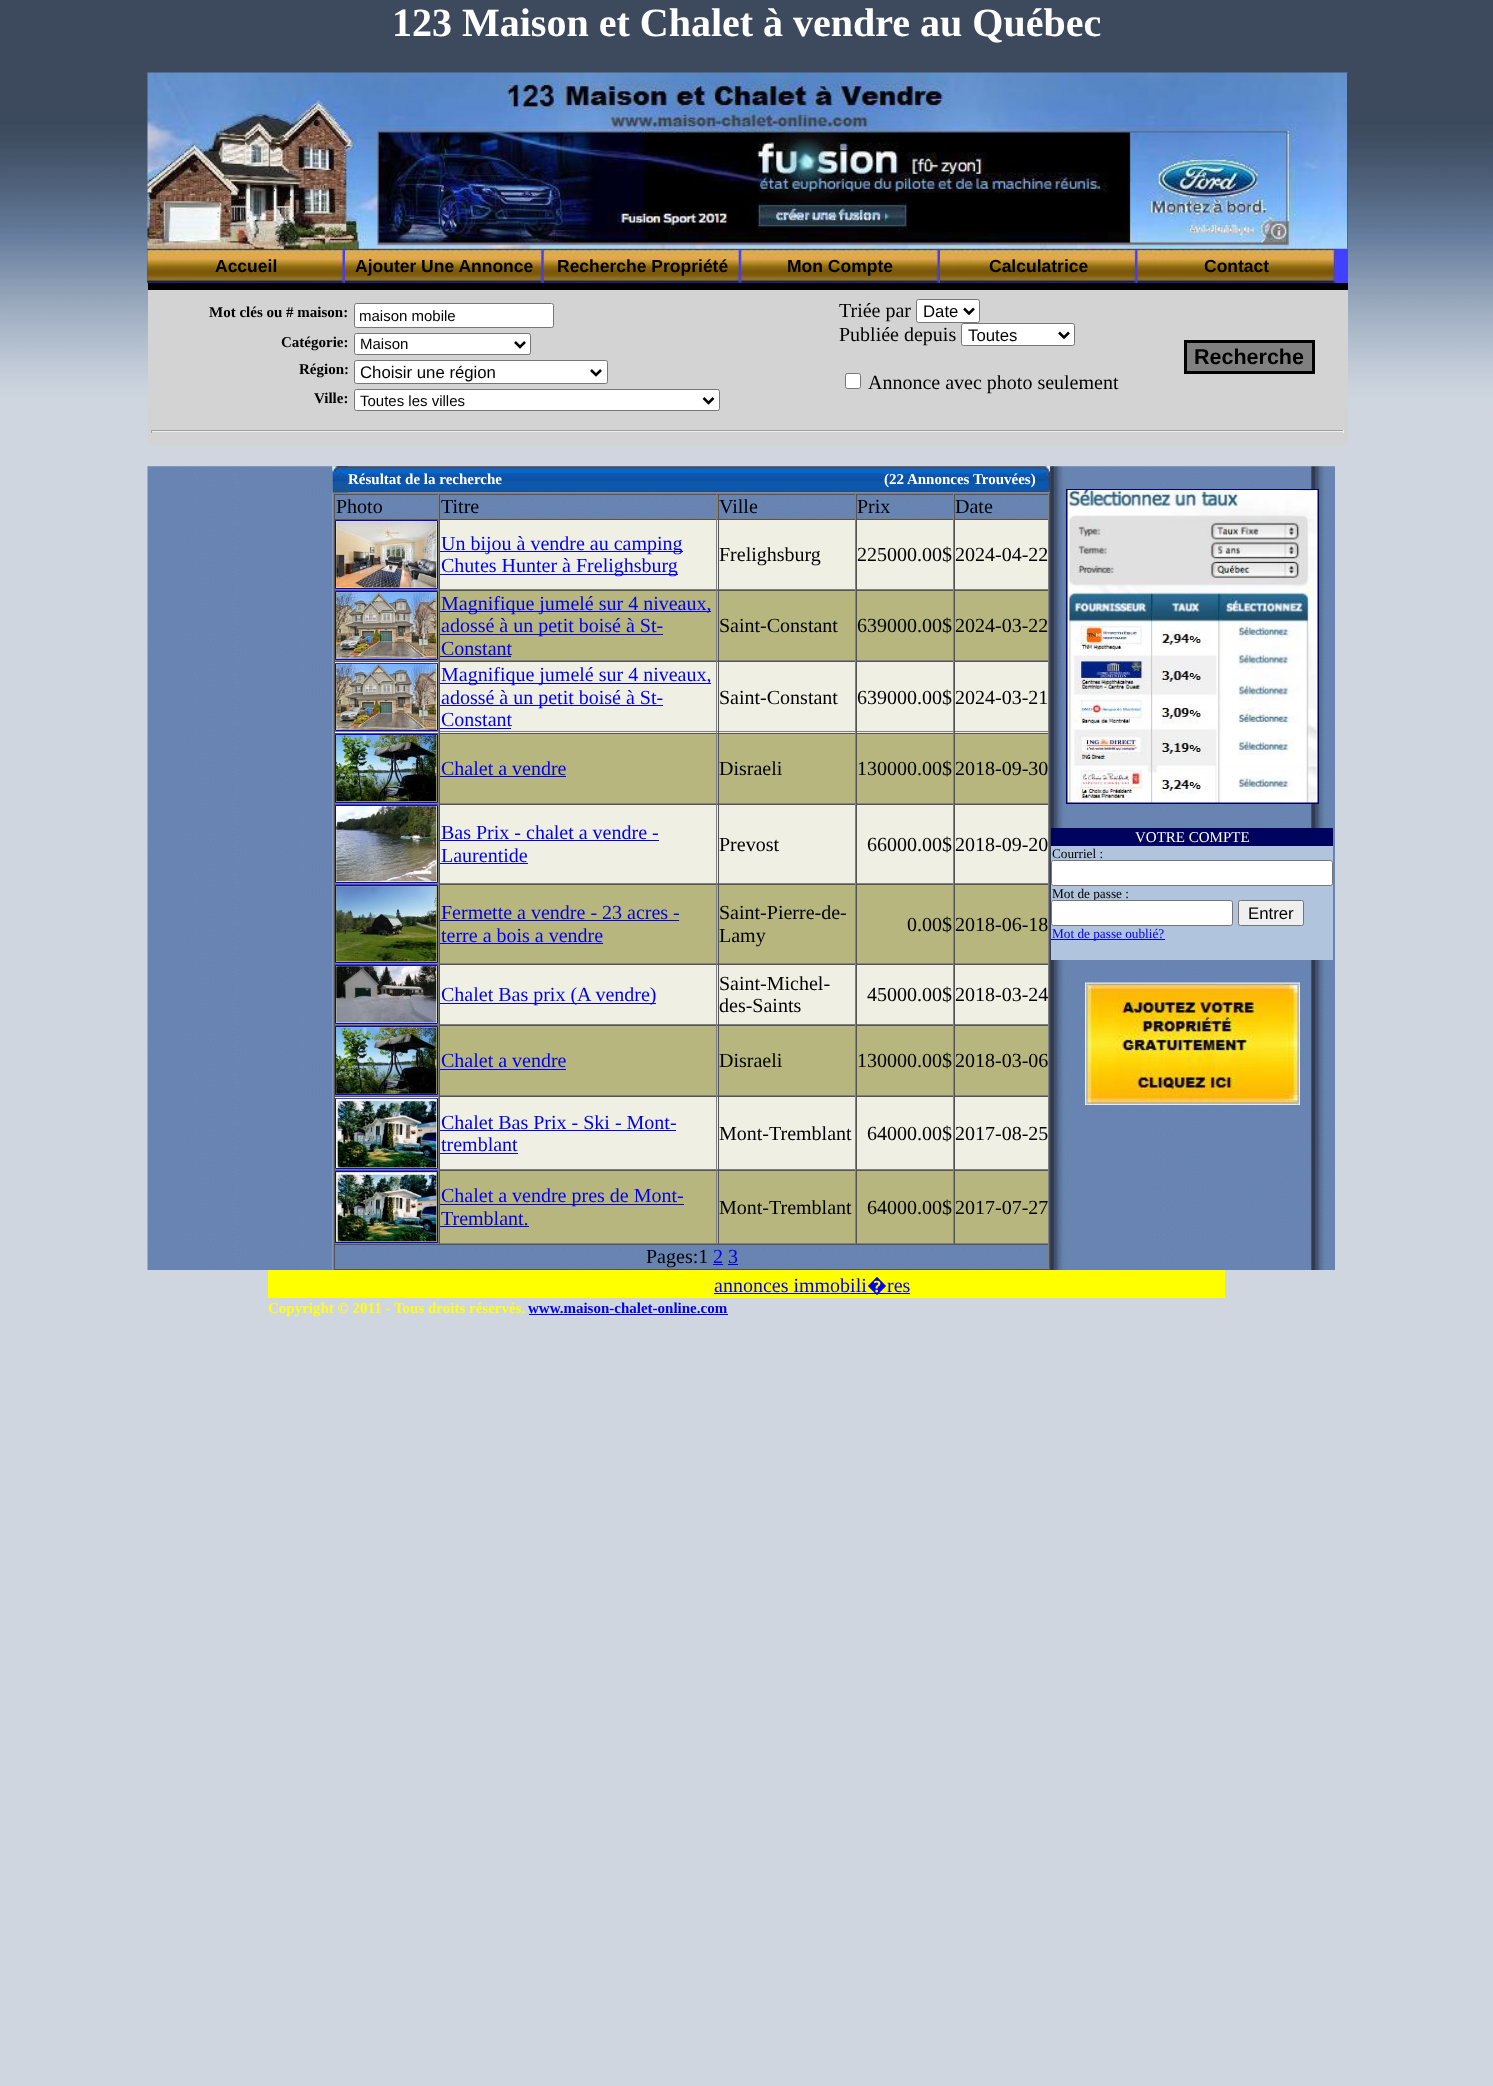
<svg xmlns="http://www.w3.org/2000/svg" width="1493" height="2086">
<style>
.a{font:bold 40px Liberation Serif;fill:#fff}
.b{font:bold 17.5px Liberation Sans;fill:#000}
.c{font:bold 15px Liberation Serif;fill:#000}
.d{font:15px Liberation Sans;fill:#000}
.e{font:16.75px Liberation Sans;fill:#000}
.f{font:20px Liberation Serif;fill:#000}
.g{font:bold 21.5px Liberation Sans;fill:#000}
.h{font:bold 15px Liberation Serif;fill:#fff}
.i{font:20px Liberation Serif;fill:#00e}
.j{font:15px Liberation Serif;fill:#fff}
.k{font:13.25px Liberation Serif;fill:#000}
.l{font:13.25px Liberation Serif;fill:#00e}
.m{font:20px Noto Sans;fill:#00e}
.n{font:bold 15px Liberation Serif;fill:#ffff10}
.o{font:bold 15px Liberation Serif;fill:#00e}
</style>
<rect width="100%" height="100%" fill="#fff"/>
<image href="1.png" x="0" y="0" width="1493" height="2086"/>
<path fill="#000" d="M1347 73h1v175H1347z"/>
<path fill="#4041fe" d="M147 248h1201v35H147z"/>
<image href="3.png" x="147" y="248" width="198" height="35"/>
<image href="4.png" x="345" y="248" width="199" height="35"/>
<image href="5.png" x="543" y="248" width="199" height="35"/>
<image href="6.png" x="741" y="248" width="199" height="35"/>
<image href="7.png" x="940" y="248" width="198" height="35"/>
<image href="8.png" x="1137" y="248" width="200" height="35"/>
<image href="2.png" x="147" y="72" width="1201" height="177"/>
<path fill="#000" d="M148 283h1200v7H148z"/>
<path fill="#d3d3d3" d="M148 290h1200v156H148z"/>
<rect fill="#fff" stroke="#767676" x="354.5" y="303.5" width="199" height="24" rx="2"/>
<rect fill="#fff" stroke="#767676" x="354.5" y="333.5" width="176" height="21" rx="2"/>
<path fill="none" stroke="#000" stroke-width="2.5" d="M515 342l5 5l5-5"/>
<rect fill="#fff" stroke="#767676" x="354.5" y="360.5" width="253" height="23" rx="2"/>
<path fill="none" stroke="#000" stroke-width="2.5" d="M591 370l5 5l5-5"/>
<rect fill="#fff" stroke="#767676" x="354.5" y="389.5" width="365" height="21" rx="2"/>
<path fill="none" stroke="#000" stroke-width="2.5" d="M703.5 398l5 5l5-5"/>
<rect fill="#fff" stroke="#767676" x="916.5" y="299.5" width="63" height="23" rx="2"/>
<path fill="none" stroke="#000" stroke-width="2.5" d="M964 308.5l5 5l5-5"/>
<rect fill="#fff" stroke="#767676" x="961.5" y="323.5" width="113" height="22" rx="2"/>
<path fill="none" stroke="#000" stroke-width="2.5" d="M1059 332.5l5 5l5-5"/>
<rect fill="#fff" stroke="#767676" x="845.5" y="373.5" width="15" height="15" rx="2"/>
<path fill="#808080" stroke="#000" stroke-width="3" d="M1185.5 341.5h128v31H1185.5z"/>
<path fill="#9f9f9f" d="M151 430h1193v1H151z"/>
<path fill="#eee" d="M1343 430h1v3H1343z"/>
<path fill="#eee" d="M151 431h1193v1H151z"/>
<path fill="#9f9f9f" d="M151 430h1v3H151z"/>
<image href="9.png" x="147" y="466" width="186" height="804"/>
<path fill="#369" d="M333 466h15v27H333z"/>
<image href="10.png" x="332" y="466" width="16" height="27"/>
<image href="11.png" x="347" y="466" width="348" height="27"/>
<image href="12.png" x="695" y="466" width="340" height="27"/>
<image href="13.png" x="1035" y="466" width="15" height="27"/>
<image href="14.png" x="332" y="492" width="718" height="778"/>
<path fill="#808080" d="M333 493h717v1H333z"/>
<path fill="#555" d="M1049 493h1v777H1049z"/>
<path fill="#555" d="M333 1269h717v1H333z"/>
<path fill="#808080" d="M333 493h1v777H333z"/>
<path fill="#555" d="M334 494h715v1H334z"/>
<path fill="#808080" d="M438 494h1v25H438z"/>
<path fill="#808080" d="M334 518h105v1H334z"/>
<path fill="#555" d="M334 494h1v25H334z"/>
<path fill="#808080" d="M716 494h1v25H716z"/>
<path fill="#808080" d="M439 518h279v1H439z"/>
<path fill="#555" d="M439 494h1v25H439z"/>
<path fill="#808080" d="M855 494h1v25H855z"/>
<path fill="#808080" d="M718 518h138v1H718z"/>
<path fill="#555" d="M718 494h1v25H718z"/>
<path fill="#808080" d="M953 494h1v25H953z"/>
<path fill="#808080" d="M856 518h98v1H856z"/>
<path fill="#555" d="M856 494h1v25H856z"/>
<path fill="#808080" d="M1048 494h1v25H1048z"/>
<path fill="#808080" d="M954 518h95v1H954z"/>
<path fill="#555" d="M954 494h1v25H954z"/>
<path fill="#efefe3" d="M336 520h712v69H336z"/>
<path fill="#555" d="M334 519h715v1H334z"/>
<path fill="#808080" d="M438 519h1v71H438z"/>
<path fill="#808080" d="M334 589h105v1H334z"/>
<path fill="#555" d="M334 519h1v71H334z"/>
<path fill="none" stroke="#00e" d="M335.5 520.5h102v68H335.5z"/>
<image href="15.png" x="336" y="521" width="101" height="67"/>
<path fill="#808080" d="M716 519h1v71H716z"/>
<path fill="#808080" d="M439 589h279v1H439z"/>
<path fill="#555" d="M439 519h1v71H439z"/>
<path fill="#00e" d="M440 551h243v1H440z"/>
<path fill="#00e" d="M440 574h238v1H440z"/>
<path fill="#808080" d="M855 519h1v71H855z"/>
<path fill="#808080" d="M718 589h138v1H718z"/>
<path fill="#555" d="M718 519h1v71H718z"/>
<path fill="#808080" d="M953 519h1v71H953z"/>
<path fill="#808080" d="M856 589h98v1H856z"/>
<path fill="#555" d="M856 519h1v71H856z"/>
<path fill="#808080" d="M1048 519h1v71H1048z"/>
<path fill="#808080" d="M954 589h95v1H954z"/>
<path fill="#555" d="M954 519h1v71H954z"/>
<path fill="#b6b67e" d="M336 591h712v69H336z"/>
<path fill="#555" d="M334 590h715v1H334z"/>
<path fill="#808080" d="M438 590h1v71H438z"/>
<path fill="#808080" d="M334 660h105v1H334z"/>
<path fill="#555" d="M334 590h1v71H334z"/>
<path fill="none" stroke="#00e" d="M335.5 591.5h102v68H335.5z"/>
<image href="16.png" x="336" y="592" width="101" height="67"/>
<path fill="#808080" d="M716 590h1v71H716z"/>
<path fill="#808080" d="M439 660h279v1H439z"/>
<path fill="#555" d="M439 590h1v71H439z"/>
<path fill="#00e" d="M440 611h271v1H440z"/>
<path fill="#00e" d="M440 634h223v1H440z"/>
<path fill="#00e" d="M440 656h71v1H440z"/>
<path fill="#808080" d="M855 590h1v71H855z"/>
<path fill="#808080" d="M718 660h138v1H718z"/>
<path fill="#555" d="M718 590h1v71H718z"/>
<path fill="#808080" d="M953 590h1v71H953z"/>
<path fill="#808080" d="M856 660h98v1H856z"/>
<path fill="#555" d="M856 590h1v71H856z"/>
<path fill="#808080" d="M1048 590h1v71H1048z"/>
<path fill="#808080" d="M954 660h95v1H954z"/>
<path fill="#555" d="M954 590h1v71H954z"/>
<path fill="#efefe3" d="M335 662h713v71H335z"/>
<path fill="#555" d="M334 661h715v1H334z"/>
<path fill="#808080" d="M438 661h1v72H438z"/>
<path fill="#808080" d="M334 731h105v1H334z"/>
<path fill="#555" d="M334 661h1v72H334z"/>
<path fill="none" stroke="#00e" d="M335.5 663.5h102v67H335.5z"/>
<image href="17.png" x="336" y="663" width="101" height="67"/>
<path fill="#808080" d="M716 661h1v72H716z"/>
<path fill="#808080" d="M439 731h279v1H439z"/>
<path fill="#555" d="M439 661h1v72H439z"/>
<path fill="#00e" d="M440 683h271v1H440z"/>
<path fill="#00e" d="M440 705h223v1H440z"/>
<path fill="#00e" d="M440 728h71v1H440z"/>
<path fill="#808080" d="M855 661h1v72H855z"/>
<path fill="#808080" d="M718 731h138v1H718z"/>
<path fill="#555" d="M718 661h1v72H718z"/>
<path fill="#808080" d="M953 661h1v72H953z"/>
<path fill="#808080" d="M856 731h98v1H856z"/>
<path fill="#555" d="M856 661h1v72H856z"/>
<path fill="#808080" d="M1048 661h1v72H1048z"/>
<path fill="#808080" d="M954 731h95v1H954z"/>
<path fill="#555" d="M954 661h1v72H954z"/>
<path fill="#b6b67e" d="M336 734h712v69H336z"/>
<path fill="#555" d="M334 733h715v1H334z"/>
<path fill="#808080" d="M438 733h1v71H438z"/>
<path fill="#808080" d="M334 803h105v1H334z"/>
<path fill="#555" d="M334 733h1v71H334z"/>
<path fill="none" stroke="#00e" d="M335.5 734.5h102v68H335.5z"/>
<image href="18.png" x="336" y="735" width="101" height="67"/>
<path fill="#808080" d="M716 733h1v71H716z"/>
<path fill="#808080" d="M439 803h279v1H439z"/>
<path fill="#555" d="M439 733h1v71H439z"/>
<path fill="#00e" d="M440 776h126v1H440z"/>
<path fill="#808080" d="M855 733h1v71H855z"/>
<path fill="#808080" d="M718 803h138v1H718z"/>
<path fill="#555" d="M718 733h1v71H718z"/>
<path fill="#808080" d="M953 733h1v71H953z"/>
<path fill="#808080" d="M856 803h98v1H856z"/>
<path fill="#555" d="M856 733h1v71H856z"/>
<path fill="#808080" d="M1048 733h1v71H1048z"/>
<path fill="#808080" d="M954 803h95v1H954z"/>
<path fill="#555" d="M954 733h1v71H954z"/>
<path fill="#efefe3" d="M336 805h712v78H336z"/>
<path fill="#555" d="M334 804h715v1H334z"/>
<path fill="#808080" d="M438 804h1v80H438z"/>
<path fill="#808080" d="M334 883h105v1H334z"/>
<path fill="#555" d="M334 804h1v80H334z"/>
<path fill="none" stroke="#00e" d="M335.5 805.5h102v77H335.5z"/>
<image href="19.png" x="336" y="806" width="101" height="76"/>
<path fill="#808080" d="M716 804h1v80H716z"/>
<path fill="#808080" d="M439 883h279v1H439z"/>
<path fill="#555" d="M439 804h1v80H439z"/>
<path fill="#00e" d="M440 840h219v1H440z"/>
<path fill="#00e" d="M440 863h88v1H440z"/>
<path fill="#808080" d="M855 804h1v80H855z"/>
<path fill="#808080" d="M718 883h138v1H718z"/>
<path fill="#555" d="M718 804h1v80H718z"/>
<path fill="#808080" d="M953 804h1v80H953z"/>
<path fill="#808080" d="M856 883h98v1H856z"/>
<path fill="#555" d="M856 804h1v80H856z"/>
<path fill="#808080" d="M1048 804h1v80H1048z"/>
<path fill="#808080" d="M954 883h95v1H954z"/>
<path fill="#555" d="M954 804h1v80H954z"/>
<path fill="#b6b67e" d="M336 885h712v78H336z"/>
<path fill="#555" d="M334 884h715v1H334z"/>
<path fill="#808080" d="M438 884h1v80H438z"/>
<path fill="#808080" d="M334 963h105v1H334z"/>
<path fill="#555" d="M334 884h1v80H334z"/>
<path fill="none" stroke="#00e" d="M335.5 885.5h102v77H335.5z"/>
<image href="20.png" x="336" y="886" width="101" height="76"/>
<path fill="#808080" d="M716 884h1v80H716z"/>
<path fill="#808080" d="M439 963h279v1H439z"/>
<path fill="#555" d="M439 884h1v80H439z"/>
<path fill="#00e" d="M440 920h239v1H440z"/>
<path fill="#00e" d="M440 943h163v1H440z"/>
<path fill="#808080" d="M855 884h1v80H855z"/>
<path fill="#808080" d="M718 963h138v1H718z"/>
<path fill="#555" d="M718 884h1v80H718z"/>
<path fill="#808080" d="M953 884h1v80H953z"/>
<path fill="#808080" d="M856 963h98v1H856z"/>
<path fill="#555" d="M856 884h1v80H856z"/>
<path fill="#808080" d="M1048 884h1v80H1048z"/>
<path fill="#808080" d="M954 963h95v1H954z"/>
<path fill="#555" d="M954 884h1v80H954z"/>
<path fill="#efefe3" d="M336 965h712v59H336z"/>
<path fill="#555" d="M334 964h715v1H334z"/>
<path fill="#808080" d="M438 964h1v61H438z"/>
<path fill="#808080" d="M334 1024h105v1H334z"/>
<path fill="#555" d="M334 964h1v61H334z"/>
<path fill="none" stroke="#00e" d="M335.5 965.5h102v58H335.5z"/>
<image href="21.png" x="336" y="966" width="101" height="57"/>
<path fill="#808080" d="M716 964h1v61H716z"/>
<path fill="#808080" d="M439 1024h279v1H439z"/>
<path fill="#555" d="M439 964h1v61H439z"/>
<path fill="#00e" d="M440 1003h216v1H440z"/>
<path fill="#808080" d="M855 964h1v61H855z"/>
<path fill="#808080" d="M718 1024h138v1H718z"/>
<path fill="#555" d="M718 964h1v61H718z"/>
<path fill="#808080" d="M953 964h1v61H953z"/>
<path fill="#808080" d="M856 1024h98v1H856z"/>
<path fill="#555" d="M856 964h1v61H856z"/>
<path fill="#808080" d="M1048 964h1v61H1048z"/>
<path fill="#808080" d="M954 1024h95v1H954z"/>
<path fill="#555" d="M954 964h1v61H954z"/>
<path fill="#b6b67e" d="M336 1026h712v69H336z"/>
<path fill="#555" d="M334 1025h715v1H334z"/>
<path fill="#808080" d="M438 1025h1v71H438z"/>
<path fill="#808080" d="M334 1095h105v1H334z"/>
<path fill="#555" d="M334 1025h1v71H334z"/>
<path fill="none" stroke="#00e" d="M335.5 1026.5h102v68H335.5z"/>
<image href="22.png" x="336" y="1027" width="101" height="67"/>
<path fill="#808080" d="M716 1025h1v71H716z"/>
<path fill="#808080" d="M439 1095h279v1H439z"/>
<path fill="#555" d="M439 1025h1v71H439z"/>
<path fill="#00e" d="M440 1069h126v1H440z"/>
<path fill="#808080" d="M855 1025h1v71H855z"/>
<path fill="#808080" d="M718 1095h138v1H718z"/>
<path fill="#555" d="M718 1025h1v71H718z"/>
<path fill="#808080" d="M953 1025h1v71H953z"/>
<path fill="#808080" d="M856 1095h98v1H856z"/>
<path fill="#555" d="M856 1025h1v71H856z"/>
<path fill="#808080" d="M1048 1025h1v71H1048z"/>
<path fill="#808080" d="M954 1095h95v1H954z"/>
<path fill="#555" d="M954 1025h1v71H954z"/>
<path fill="#efefe3" d="M335 1097h713v72H335z"/>
<path fill="#555" d="M334 1096h715v1H334z"/>
<path fill="#808080" d="M438 1096h1v74H438z"/>
<path fill="#808080" d="M334 1169h105v1H334z"/>
<path fill="#555" d="M334 1096h1v74H334z"/>
<path fill="none" stroke="#00e" d="M335.5 1098.5h102v70H335.5z"/>
<image href="23.png" x="336" y="1098" width="101" height="70"/>
<path fill="#808080" d="M716 1096h1v74H716z"/>
<path fill="#808080" d="M439 1169h279v1H439z"/>
<path fill="#555" d="M439 1096h1v74H439z"/>
<path fill="#00e" d="M440 1130h236v1H440z"/>
<path fill="#00e" d="M440 1153h78v1H440z"/>
<path fill="#808080" d="M855 1096h1v74H855z"/>
<path fill="#808080" d="M718 1169h138v1H718z"/>
<path fill="#555" d="M718 1096h1v74H718z"/>
<path fill="#808080" d="M953 1096h1v74H953z"/>
<path fill="#808080" d="M856 1169h98v1H856z"/>
<path fill="#555" d="M856 1096h1v74H856z"/>
<path fill="#808080" d="M1048 1096h1v74H1048z"/>
<path fill="#808080" d="M954 1169h95v1H954z"/>
<path fill="#555" d="M954 1096h1v74H954z"/>
<path fill="#b6b67e" d="M336 1171h712v72H336z"/>
<path fill="#555" d="M334 1170h715v1H334z"/>
<path fill="#808080" d="M438 1170h1v74H438z"/>
<path fill="#808080" d="M334 1243h105v1H334z"/>
<path fill="#555" d="M334 1170h1v74H334z"/>
<path fill="none" stroke="#00e" d="M335.5 1171.5h102v71H335.5z"/>
<image href="24.png" x="336" y="1172" width="101" height="70"/>
<path fill="#808080" d="M716 1170h1v74H716z"/>
<path fill="#808080" d="M439 1243h279v1H439z"/>
<path fill="#555" d="M439 1170h1v74H439z"/>
<path fill="#00e" d="M440 1204h244v1H440z"/>
<path fill="#00e" d="M440 1226h89v1H440z"/>
<path fill="#808080" d="M855 1170h1v74H855z"/>
<path fill="#808080" d="M718 1243h138v1H718z"/>
<path fill="#555" d="M718 1170h1v74H718z"/>
<path fill="#808080" d="M953 1170h1v74H953z"/>
<path fill="#808080" d="M856 1243h98v1H856z"/>
<path fill="#555" d="M856 1170h1v74H856z"/>
<path fill="#808080" d="M1048 1170h1v74H1048z"/>
<path fill="#808080" d="M954 1243h95v1H954z"/>
<path fill="#555" d="M954 1170h1v74H954z"/>
<path fill="#555" d="M334 1244h715v1H334z"/>
<path fill="#808080" d="M1048 1244h1v25H1048z"/>
<path fill="#808080" d="M334 1268h715v1H334z"/>
<path fill="#555" d="M334 1244h1v25H334z"/>
<path fill="#00e" d="M713 1264h10v1H713z"/>
<path fill="#00e" d="M728 1264h10v1H728z"/>
<image href="25.png" x="1050" y="466" width="285" height="804"/>
<path fill="#00035e" d="M1066 489h253v315H1066z"/>
<image href="26.png" x="1067" y="490" width="251" height="313"/>
<path fill="#00035e" d="M1051 828h282v18H1051z"/>
<path fill="#b0c4de" d="M1051 846h282v114H1051z"/>
<rect fill="#fff" stroke="#767676" x="1051.5" y="860.5" width="281" height="25" rx="2"/>
<rect fill="#efefef" stroke="#767676" x="1238.5" y="900.5" width="65" height="25" rx="2"/>
<path fill="#00e" d="M1051 939h114v1H1051z"/>
<image href="27.png" x="1085" y="982" width="215" height="123"/>
<path fill="#ff0" d="M268 1270h957v28H268z"/>
<path fill="#00e" d="M714 1293h196v1H714z"/>
<path fill="#00e" d="M529 1314h199v1H529z"/>
<text class="a" x="392" y="36">123 Maison et Chalet à vendre au Québec</text>
<text class="b" x="215" y="272">Accueil</text>
<text class="b" x="355" y="272">Ajouter Une Annonce</text>
<text class="b" x="557" y="272">Recherche Propriété</text>
<text class="b" x="787" y="272">Mon Compte</text>
<text class="b" x="989" y="272">Calculatrice</text>
<text class="b" x="1204" y="272">Contact</text>
<text class="c" x="209" y="317">Mot clés ou # maison:</text>
<text class="d" x="359" y="321">maison mobile</text>
<text class="c" x="281" y="347">Catégorie:</text>
<text class="d" x="360" y="349">Maison</text>
<text class="c" x="299" y="374">Région:</text>
<text class="e" x="360" y="378">Choisir une région</text>
<text class="c" x="314" y="403">Ville:</text>
<text class="d" x="360" y="406">Toutes les villes</text>
<text class="f" x="839" y="317">Triée par</text>
<text class="e" x="923" y="317">Date</text>
<text class="f" x="839" y="341">Publiée depuis</text>
<text class="e" x="968" y="341">Toutes</text>
<text class="f" x="868" y="389">Annonce avec photo seulement</text>
<text class="g" x="1194" y="364">Recherche</text>
<text class="h" x="348" y="484">Résultat de la recherche</text>
<text class="h" x="884" y="484">(22 Annonces Trouvées)</text>
<text class="f" x="336" y="513">Photo</text>
<text class="f" x="441" y="513">Titre</text>
<text class="f" x="719" y="513">Ville</text>
<text class="f" x="857" y="513">Prix</text>
<text class="f" x="955" y="513">Date</text>
<text class="i" x="441" y="550">Un bijou à vendre au camping</text>
<text class="i" x="441" y="572">Chutes Hunter à Frelighsburg</text>
<text class="f" x="719" y="561">Frelighsburg</text>
<text class="f" x="857" y="561">225000.00$</text>
<text class="f" x="955" y="561">2024-04-22</text>
<text class="i" x="441" y="610">Magnifique jumelé sur 4 niveaux,</text>
<text class="i" x="441" y="632">adossé à un petit boisé à St-</text>
<text class="i" x="441" y="655">Constant</text>
<text class="f" x="719" y="632">Saint-Constant</text>
<text class="f" x="857" y="632">639000.00$</text>
<text class="f" x="955" y="632">2024-03-22</text>
<text class="i" x="441" y="681">Magnifique jumelé sur 4 niveaux,</text>
<text class="i" x="441" y="704">adossé à un petit boisé à St-</text>
<text class="i" x="441" y="726">Constant</text>
<text class="f" x="719" y="704">Saint-Constant</text>
<text class="f" x="857" y="704">639000.00$</text>
<text class="f" x="955" y="704">2024-03-21</text>
<text class="i" x="441" y="775">Chalet a vendre</text>
<text class="f" x="719" y="775">Disraeli</text>
<text class="f" x="857" y="775">130000.00$</text>
<text class="f" x="955" y="775">2018-09-30</text>
<text class="i" x="441" y="839">Bas Prix - chalet a vendre -</text>
<text class="i" x="441" y="862">Laurentide</text>
<text class="f" x="719" y="851">Prevost</text>
<text class="f" x="867" y="851">66000.00$</text>
<text class="f" x="955" y="851">2018-09-20</text>
<text class="i" x="441" y="919">Fermette a vendre - 23 acres -</text>
<text class="i" x="441" y="942">terre a bois a vendre</text>
<text class="f" x="719" y="919">Saint-Pierre-de-</text>
<text class="f" x="719" y="942">Lamy</text>
<text class="f" x="907" y="931">0.00$</text>
<text class="f" x="955" y="931">2018-06-18</text>
<text class="i" x="441" y="1001">Chalet Bas prix (A vendre)</text>
<text class="f" x="719" y="990">Saint-Michel-</text>
<text class="f" x="719" y="1012">des-Saints</text>
<text class="f" x="867" y="1001">45000.00$</text>
<text class="f" x="955" y="1001">2018-03-24</text>
<text class="i" x="441" y="1067">Chalet a vendre</text>
<text class="f" x="719" y="1067">Disraeli</text>
<text class="f" x="857" y="1067">130000.00$</text>
<text class="f" x="955" y="1067">2018-03-06</text>
<text class="i" x="441" y="1129">Chalet Bas Prix - Ski - Mont-</text>
<text class="i" x="441" y="1151">tremblant</text>
<text class="f" x="719" y="1140">Mont-Tremblant</text>
<text class="f" x="867" y="1140">64000.00$</text>
<text class="f" x="955" y="1140">2017-08-25</text>
<text class="i" x="441" y="1202">Chalet a vendre pres de Mont-</text>
<text class="i" x="441" y="1225">Tremblant.</text>
<text class="f" x="719" y="1214">Mont-Tremblant</text>
<text class="f" x="867" y="1214">64000.00$</text>
<text class="f" x="955" y="1214">2017-07-27</text>
<text class="f" x="646" y="1263">Pages:1</text>
<text class="i" x="713" y="1263">2 3</text>
<text class="j" x="1135" y="842">VOTRE COMPTE</text>
<text class="k" x="1052" y="858">Courriel :</text>
<text class="k" x="1052" y="898">Mot de passe :</text>
<rect fill="#fff" stroke="#767676" x="1051.5" y="900.5" width="181" height="25" rx="2"/>
<text class="e" x="1248" y="919">Entrer</text>
<text class="l" x="1052" y="938">Mot de passe oublié?</text>
<text class="i" x="714" y="1292">annonces immobili</text>
<text class="m" x="867" y="1292">�</text>
<text class="i" x="887" y="1292">res</text>
<text class="n" x="268" y="1313">Copyright © 2011 - Tous droits réservés.</text>
<text class="o" x="528" y="1313">www.maison-chalet-online.com</text>
</svg>
